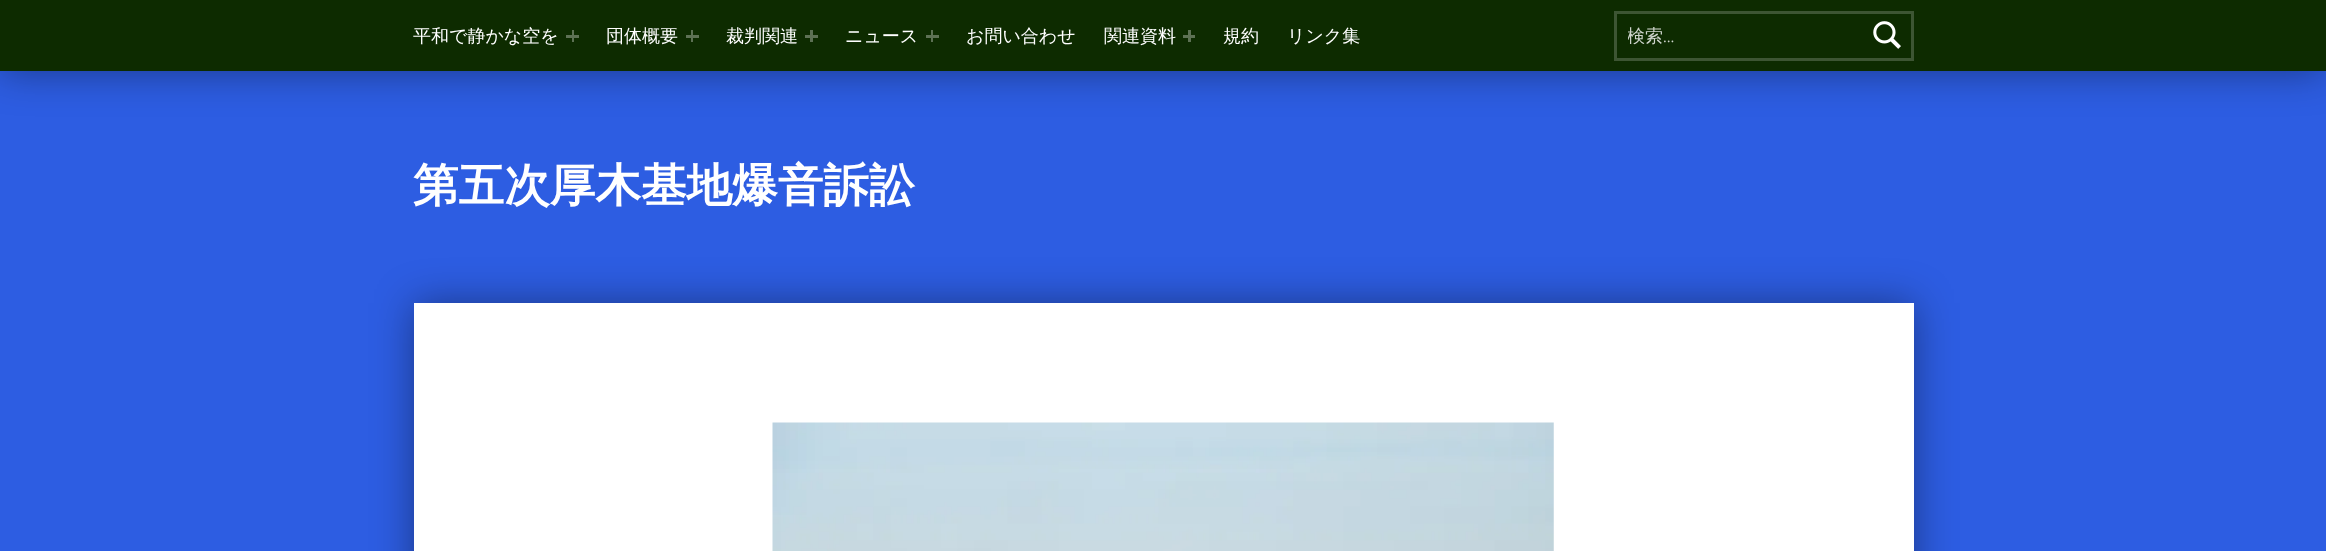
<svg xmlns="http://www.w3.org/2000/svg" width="2326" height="551">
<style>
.a{font:500 18px WenQuanYi Zen Hei;fill:#fff}
.b{font:500 18px WenQuanYi Zen Hei;fill:#cfd5cc}
.c{font:300 18px Fira Sans;fill:#cfd5cc}
.d{font:bold 45.6px WenQuanYi Zen Hei;fill:#fff}
</style>
<defs>
<clipPath id="clip1"><path d="M1628 25h226v24H1628z"/></clipPath>
</defs>
<rect width="100%" height="100%" fill="#2d5de2"/>
<path fill="#00000066" filter="blur(20px)" d="M0 0h2326v71H0z"/>
<path fill="#0d2b00" d="M0 0h2326v71H0z"/>
<path fill="#5d7154" d="M566 35h13v3H566z"/>
<path fill="#5d7154" d="M572 30h2v12H572z"/>
<path fill="#5d7154" d="M686 35h13v3H686z"/>
<path fill="#5d7154" d="M691 30h2v12H691z"/>
<path fill="#5d7154" d="M805 35h13v3H805z"/>
<path fill="#5d7154" d="M810 30h3v12H810z"/>
<path fill="#5d7154" d="M926 35h13v3H926z"/>
<path fill="#5d7154" d="M931 30h2v12H931z"/>
<path fill="#5d7154" d="M1183 35h12v3H1183z"/>
<path fill="#5d7154" d="M1188 30h3v12H1188z"/>
<path fill="none" stroke="#3d5533" stroke-width="3" d="M1615.5 12.5h297v47H1615.5z"/>
<image href="1.png" x="1873" y="21" width="28" height="28"/>
<path fill="#00000066" filter="blur(20px)" d="M414 303h1500v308H414z"/>
<path fill="#fff" d="M414 303h1500v248H414z"/>
<image href="2.png" x="772" y="422" width="782" height="129"/>
<text class="a" x="413" y="42">平和で静かな空を</text>
<text class="a" x="606" y="42">団体概要</text>
<text class="a" x="726" y="42">裁判関連</text>
<text class="a" x="845" y="42">ニュース</text>
<text class="a" x="966" y="42">お問い合わせ</text>
<text class="a" x="1104" y="42">関連資料</text>
<text class="a" x="1223" y="42">規約</text>
<text class="a" x="1287" y="42">リンク集</text>
<g clip-path="url(#clip1)">
<text class="b" x="1627" y="42">検索</text>
</g>
<text class="c" x="1663" y="42">…</text>
<text class="d" x="413" y="201">第五次厚木基地爆音訴訟</text>
</svg>
